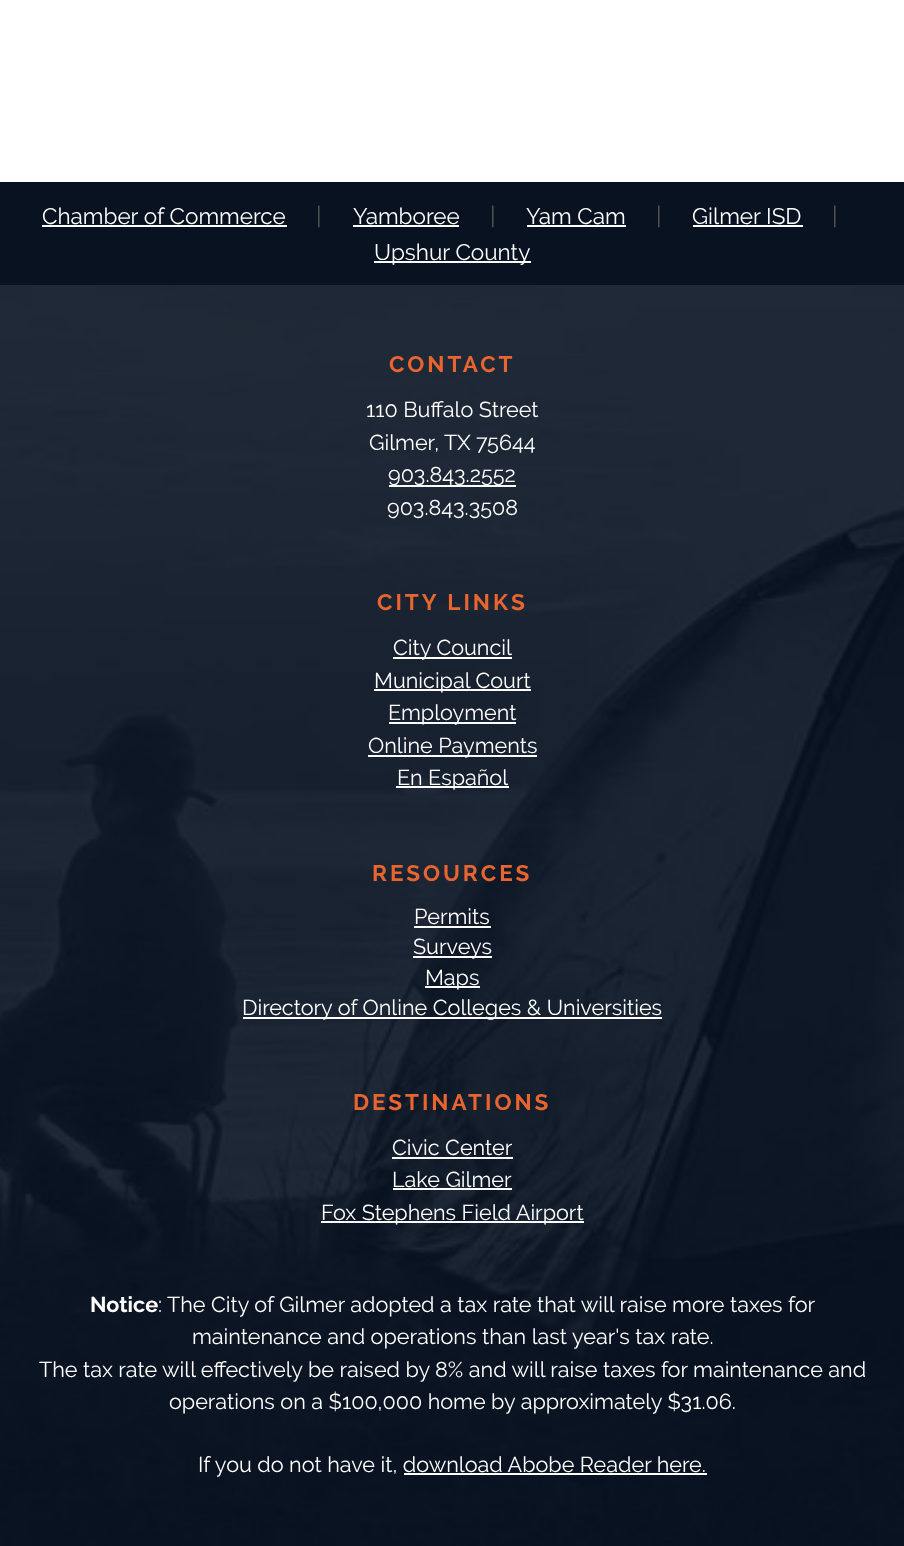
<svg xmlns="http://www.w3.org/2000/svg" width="904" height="1546">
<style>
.a{font:22.5px Raleway;fill:#fff}
.b{font:24px Raleway;fill:#555}
.c{font:bold 22.5px Raleway;letter-spacing:3px;fill:#e96530}
.d{font:21.6px Raleway;fill:#fff}
.e{font:bold 21.6px Raleway;fill:#fff}
</style>
<rect width="100%" height="100%" fill="#fff"/>
<path fill="#081220" d="M0 182h904v103H0z"/>
<path fill="#fff" d="M42 225h245v2H42z"/>
<path fill="#fff" d="M353 225h106v2H353z"/>
<path fill="#fff" d="M527 225h99v2H527z"/>
<path fill="#fff" d="M693 225h110v2H693z"/>
<path fill="#fff" d="M374 261h157v2H374z"/>
<image href="1.png" x="0" y="285" width="904" height="1261"/>
<path fill="#fff" d="M389 485h127v2H389z"/>
<path fill="#fff" d="M393 657h119v2H393z"/>
<path fill="#fff" d="M374 689h157v2H374z"/>
<path fill="#fff" d="M389 722h127v2H389z"/>
<path fill="#fff" d="M368 755h169v2H368z"/>
<path fill="#fff" d="M396 786h113v2H396z"/>
<path fill="#fff" d="M414 926h77v2H414z"/>
<path fill="#fff" d="M413 956h79v2H413z"/>
<path fill="#fff" d="M425 986h55v2H425z"/>
<path fill="#fff" d="M243 1017h419v2H243z"/>
<path fill="#fff" d="M392 1157h121v2H392z"/>
<path fill="#fff" d="M393 1188h119v2H393z"/>
<path fill="#fff" d="M321 1221h263v2H321z"/>
<path fill="#fff" d="M404 1473h303v2H404z"/>
<text class="a" x="42" y="224">Chamber of Commerce</text>
<text class="b" x="316" y="224">|</text>
<text class="a" x="353" y="224">Yamboree</text>
<text class="b" x="490" y="224">|</text>
<text class="a" x="526" y="224">Yam Cam</text>
<text class="b" x="656" y="224">|</text>
<text class="a" x="692" y="224">Gilmer ISD</text>
<text class="b" x="832" y="224">|</text>
<text class="a" x="374" y="260">Upshur County</text>
<text class="c" x="389" y="372">CONTACT</text>
<text class="d" x="366" y="417">110 Buffalo Street</text>
<text class="d" x="369" y="450">Gilmer, TX 75644</text>
<text class="d" x="388" y="482">903.843.2552</text>
<text class="d" x="387" y="515">903.843.3508</text>
<text class="c" x="377" y="610">CITY LINKS</text>
<text class="d" x="393" y="655">City Council</text>
<text class="d" x="374" y="688">Municipal Court</text>
<text class="d" x="388" y="720">Employment</text>
<text class="d" x="368" y="753">Online Payments</text>
<text class="d" x="397" y="785">En Español</text>
<text class="c" x="372" y="881">RESOURCES</text>
<text class="d" x="414" y="924">Permits</text>
<text class="d" x="413" y="954">Surveys</text>
<text class="d" x="425" y="985">Maps</text>
<text class="d" x="242" y="1015">Directory of Online Colleges &amp; Universities</text>
<text class="c" x="353" y="1110">DESTINATIONS</text>
<text class="d" x="392" y="1155">Civic Center</text>
<text class="d" x="392" y="1187">Lake Gilmer</text>
<text class="d" x="321" y="1220">Fox Stephens Field Airport</text>
<text class="e" x="90" y="1312">Notice</text>
<text class="d" x="158" y="1312">: The City of Gilmer adopted a tax rate that will raise more taxes for</text>
<text class="d" x="192" y="1344">maintenance and operations than last year's tax rate.</text>
<text class="d" x="39" y="1377">The tax rate will effectively be raised by 8% and will raise taxes for maintenance and</text>
<text class="d" x="169" y="1409">operations on a $100,000 home by approximately $31.06.</text>
<text class="d" x="198" y="1472">If you do not have it, download Abobe Reader here.</text>
</svg>
